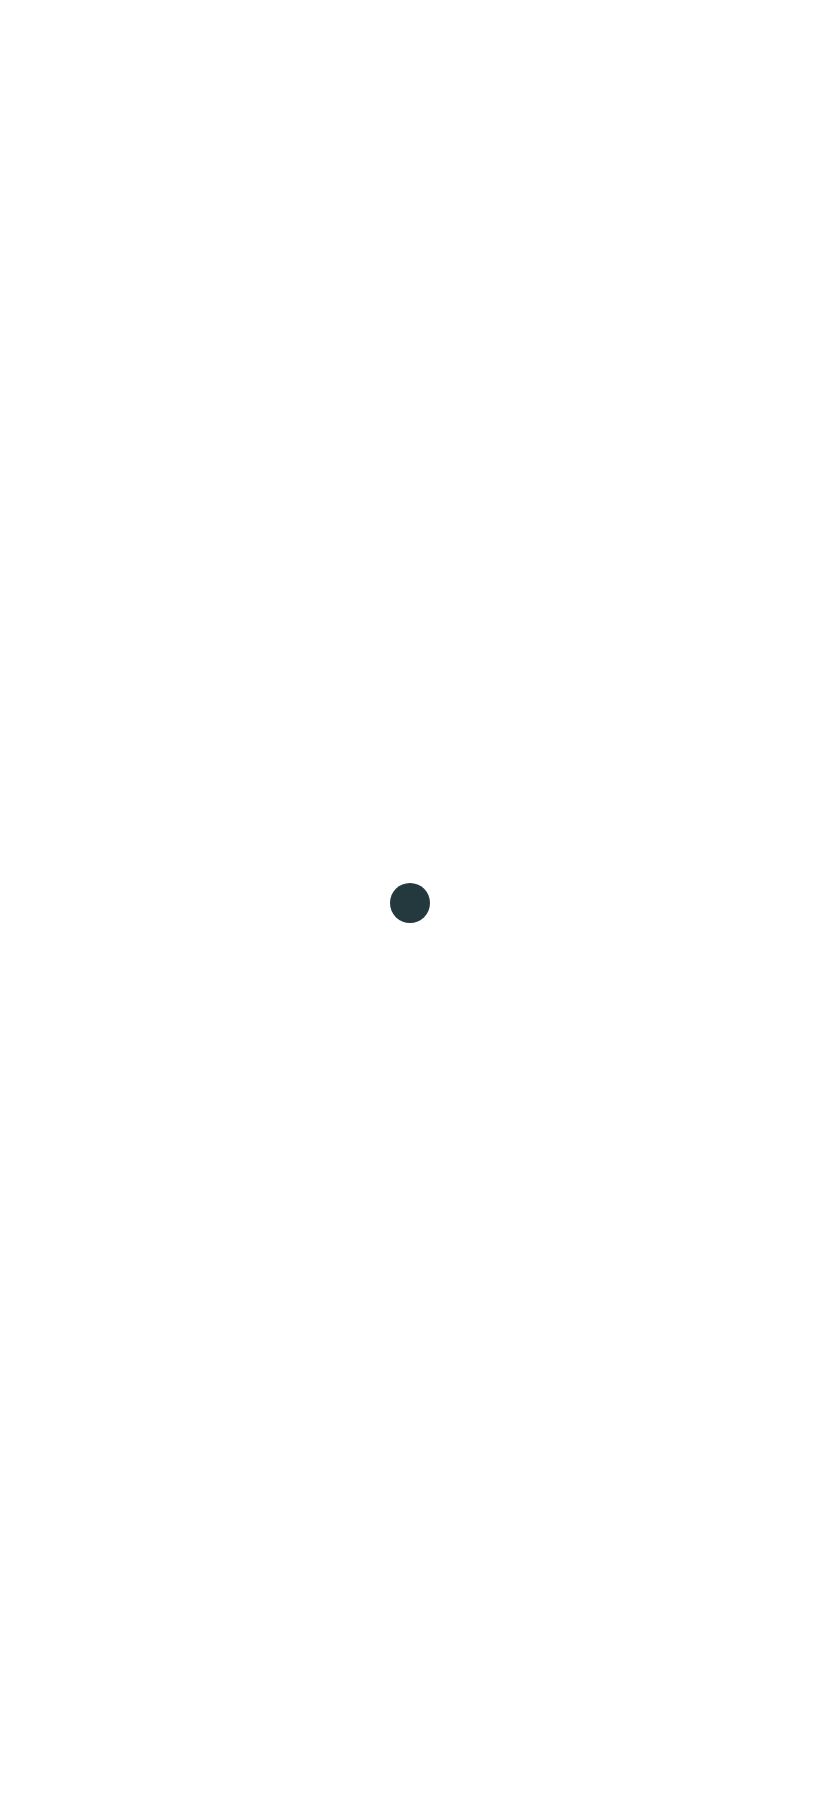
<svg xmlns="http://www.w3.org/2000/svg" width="819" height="1804">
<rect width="100%" height="100%" fill="#fff"/>
<circle fill="#23393d" cx="410" cy="903" r="20"/>
</svg>
